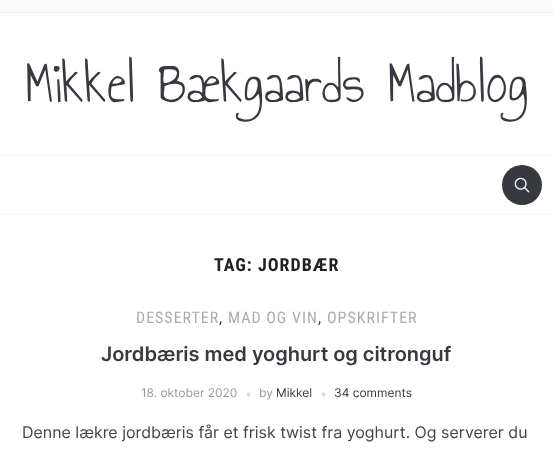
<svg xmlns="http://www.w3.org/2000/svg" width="553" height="459">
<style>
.a{font:60px Annie Use Your Telescope;fill:#363940}
.b{font:bold 18px Roboto Condensed;letter-spacing:1px;fill:#222}
.c{font:16px Roboto Condensed;letter-spacing:1px;fill:#acacac}
.d{font:16px Roboto Condensed;letter-spacing:1px;fill:#444}
.e{font:600 20px Inter;fill:#363940}
.f{font:12px Inter;fill:#999}
.g{font:9px Liberation Sans;fill:#dbdddd}
.h{font:12px Inter;fill:#363940}
.i{font:16px Inter;fill:#444}
</style>
<rect width="100%" height="100%" fill="#fff"/>
<path fill="#fafafa" d="M0 0h553v12H0z"/>
<path fill="#f0f0f0" d="M0 12h553v1H0z"/>
<path fill="#f0f0f0" d="M0 155h553v1H0z"/>
<path fill="#f0f0f0" d="M0 214h553v1H0z"/>
<circle fill="#363940" cx="522" cy="185" r="20"/>
<image href="1.png" x="514" y="177" width="16" height="16"/>
<text class="a" x="25" y="102">Mikkel Bækgaards Madblog</text>
<text class="b" x="214" y="271">TAG: JORDBÆR</text>
<text class="c" x="136" y="323">DESSERTER</text>
<text class="d" x="219" y="323">,</text>
<text class="c" x="228" y="323">MAD OG VIN</text>
<text class="d" x="318" y="323">,</text>
<text class="c" x="327" y="323">OPSKRIFTER</text>
<text class="e" x="101" y="361">Jordbæris med yoghurt og citronguf</text>
<text class="f" x="141" y="397">18. oktober 2020</text>
<text class="g" x="246" y="397">●</text>
<text class="f" x="259" y="397">by</text>
<text class="h" x="276" y="397">Mikkel</text>
<text class="g" x="321" y="397">●</text>
<text class="h" x="334" y="397">34 comments</text>
<text class="i" x="22" y="438">Denne lækre jordbæris får et frisk twist fra yoghurt. Og serverer du</text>
</svg>
